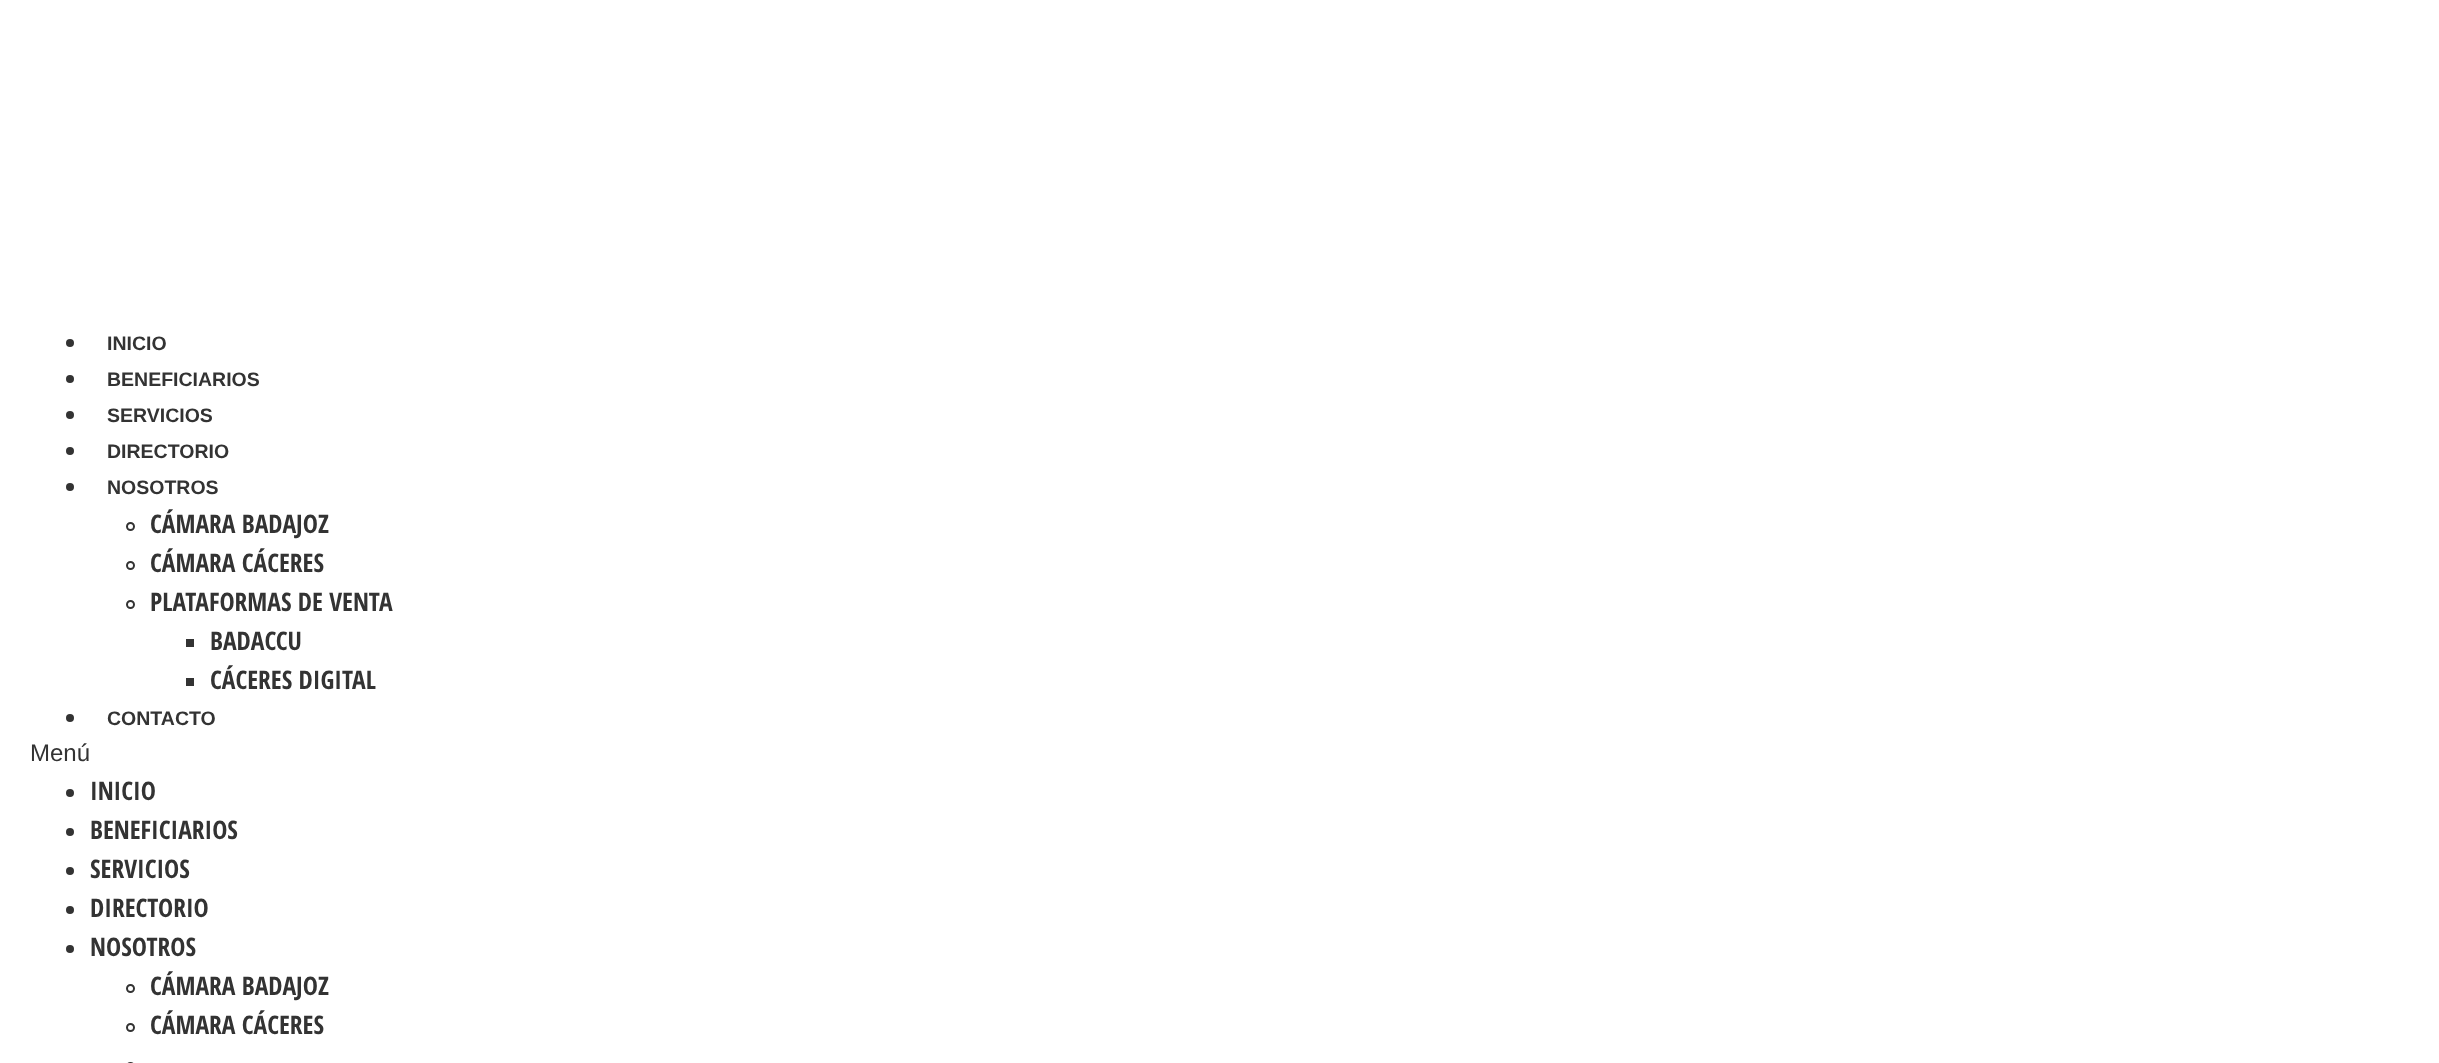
<svg xmlns="http://www.w3.org/2000/svg" width="2439" height="1063">
<style>
.a{font:bold 19.5px Liberation Sans;fill:#333}
.b{font:bold 25.5px Open Sans Condensed;fill:#333}
.c{font:24px Liberation Sans;fill:#333}
</style>
<rect width="100%" height="100%" fill="#fff"/>
<circle fill="#333" cx="70" cy="343" r="4"/>
<circle fill="#333" cx="70" cy="379" r="4"/>
<circle fill="#333" cx="70" cy="415" r="4"/>
<circle fill="#333" cx="70" cy="451" r="4"/>
<circle fill="#333" cx="70" cy="487" r="4"/>
<circle fill="none" stroke="#333" stroke-width="2" cx="130.5" cy="526.5" r="3.5"/>
<circle fill="none" stroke="#333" stroke-width="2" cx="130.5" cy="565.5" r="3.5"/>
<circle fill="none" stroke="#333" stroke-width="2" cx="130.5" cy="604.5" r="3.5"/>
<path fill="#333" d="M186 639h8v8H186z"/>
<path fill="#333" d="M186 678h8v8H186z"/>
<circle fill="#333" cx="70" cy="718" r="4"/>
<circle fill="#333" cx="70" cy="793" r="4"/>
<circle fill="#333" cx="70" cy="832" r="4"/>
<circle fill="#333" cx="70" cy="871" r="4"/>
<circle fill="#333" cx="70" cy="910" r="4"/>
<circle fill="#333" cx="70" cy="949" r="4"/>
<circle fill="none" stroke="#333" stroke-width="2" cx="130.5" cy="988.5" r="3.5"/>
<circle fill="none" stroke="#333" stroke-width="2" cx="130.5" cy="1027.5" r="3.5"/>
<rect fill="none" stroke="#333" stroke-width="2" x="127" y="1063" width="7" height="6" rx="3.5"/>
<text class="a" x="107" y="350">INICIO</text>
<text class="a" x="107" y="386">BENEFICIARIOS</text>
<text class="a" x="107" y="422">SERVICIOS</text>
<text class="a" x="107" y="458">DIRECTORIO</text>
<text class="a" x="107" y="494">NOSOTROS</text>
<text class="b" x="150" y="533">CÁMARA BADAJOZ</text>
<text class="b" x="150" y="572">CÁMARA CÁCERES</text>
<text class="b" x="150" y="611">PLATAFORMAS DE VENTA</text>
<text class="b" x="210" y="650">BADACCU</text>
<text class="b" x="210" y="689">CÁCERES DIGITAL</text>
<text class="a" x="107" y="725">CONTACTO</text>
<text class="c" x="30" y="761">Menú</text>
<text class="b" x="90" y="800">INICIO</text>
<text class="b" x="90" y="839">BENEFICIARIOS</text>
<text class="b" x="90" y="878">SERVICIOS</text>
<text class="b" x="90" y="917">DIRECTORIO</text>
<text class="b" x="90" y="956">NOSOTROS</text>
<text class="b" x="150" y="995">CÁMARA BADAJOZ</text>
<text class="b" x="150" y="1034">CÁMARA CÁCERES</text>
</svg>
